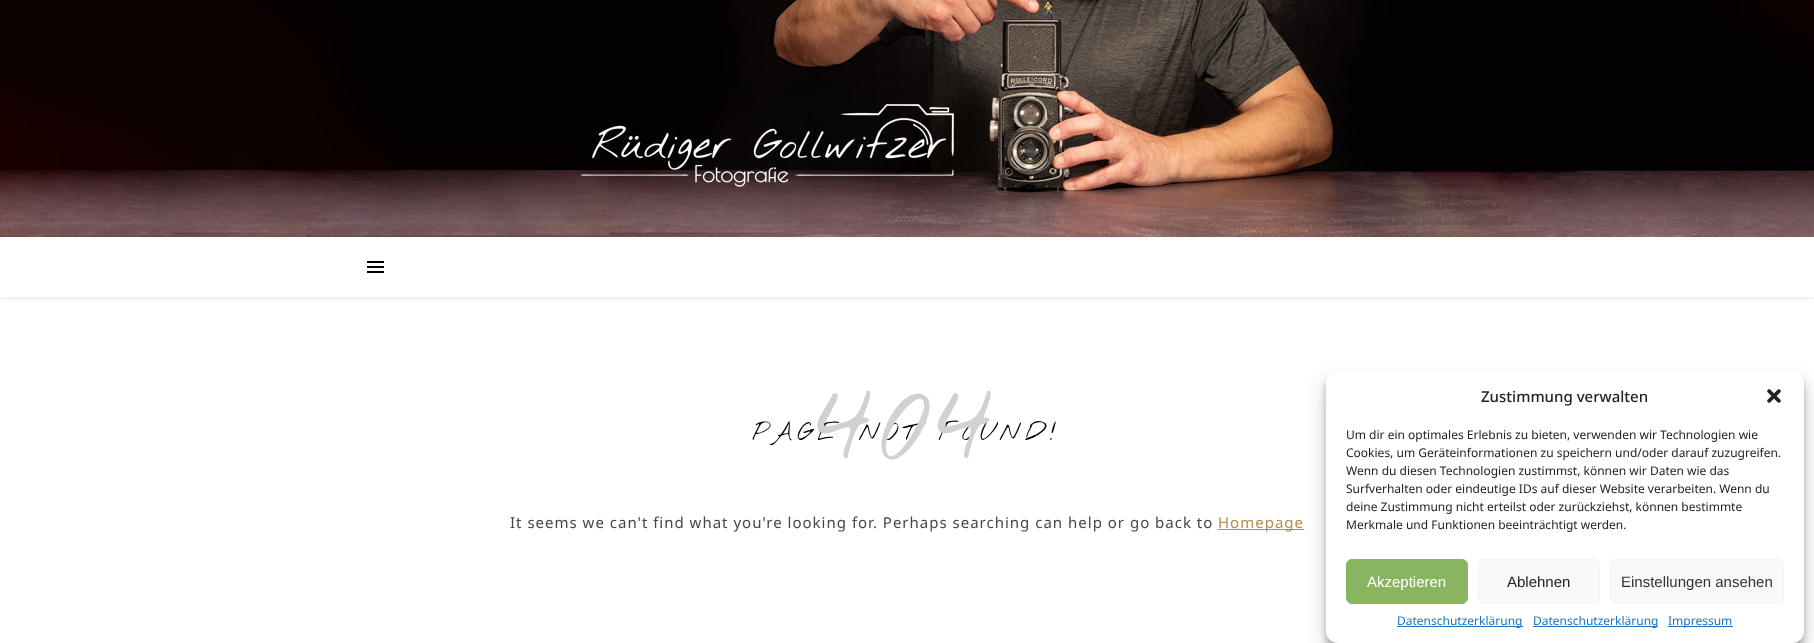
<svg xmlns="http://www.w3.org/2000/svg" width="1814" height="643">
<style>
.a{font:100 25px Nothing You Could Do;letter-spacing:5px;fill:#030303}
.b{font:100 110px Nothing You Could Do;letter-spacing:5px;fill:#d1d1d1}
.c{font:15px Noto Sans;letter-spacing:1px;fill:#464646}
.d{font:15px Noto Sans;letter-spacing:1px;fill:#b78c4b}
.e{font:500 15px Noto Sans;fill:#222}
.f{font:12px Noto Sans;fill:#222}
.g{font:15px Liberation Sans;fill:#fff}
.h{font:15px Liberation Sans;fill:#222}
.i{font:15px Liberation Sans;fill:#333}
.j{font:12px Noto Sans;fill:#1e73be}
</style>
<defs>
<clipPath id="clip1"><path d="M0 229h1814v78h-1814zm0 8h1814v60h-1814z" clip-rule="evenodd"/></clipPath>
</defs>
<rect width="100%" height="100%" fill="#fff"/>
<image href="1.png" x="0" y="0" width="1814" height="237"/>
<g clip-path="url(#clip1)">
<path fill="#0000001a" filter="blur(2.5px)" d="M0 238h1814v60H0z"/>
</g>
<path fill="#000" d="M367 261h17v2H367z"/>
<path fill="#000" d="M367 266h17v2H367z"/>
<path fill="#000" d="M367 271h17v2H367z"/>
<path fill="#b78c4b" d="M1218 529h86v1H1218z"/>
<rect fill="#0000003b" filter="blur(3px)" x="1326" y="377" width="478" height="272" rx="12"/>
<rect fill="#00000030" filter="blur(10px)" x="1326" y="381" width="478" height="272" rx="12"/>
<rect fill="#fff" x="1326" y="371" width="478" height="272" rx="12"/>
<image href="2.png" x="1767" y="389" width="14" height="14"/>
<rect fill="#8ab560" stroke="#8ab560" x="1346.5" y="559.5" width="121" height="44" rx="5.5"/>
<rect fill="#f9f9f9" stroke="#f2f2f2" x="1478.5" y="559.5" width="121" height="44" rx="5.5"/>
<rect fill="#f9f9f9" stroke="#f2f2f2" x="1610.5" y="559.5" width="173" height="44" rx="5.5"/>
<path fill="#1e73be" d="M1397 626h126v1H1397z"/>
<path fill="#1e73be" d="M1533 626h125v1H1533z"/>
<path fill="#1e73be" d="M1668 626h65v1H1668z"/>
<text class="a" x="752" y="440">PAGE NOT FOUND!</text>
<text class="b" x="815" y="459">404</text>
<text class="c" x="510" y="528">It seems we can't find what you're looking for. Perhaps searching can help or go back to</text>
<text class="d" x="1218" y="528">Homepage</text>
<text class="e" x="1481" y="402">Zustimmung verwalten</text>
<text class="f" x="1346" y="439">Um dir ein optimales Erlebnis zu bieten, verwenden wir Technologien wie</text>
<text class="f" x="1346" y="457">Cookies, um Geräteinformationen zu speichern und/oder darauf zuzugreifen.</text>
<text class="f" x="1346" y="475">Wenn du diesen Technologien zustimmst, können wir Daten wie das</text>
<text class="f" x="1346" y="493">Surfverhalten oder eindeutige IDs auf dieser Website verarbeiten. Wenn du</text>
<text class="f" x="1346" y="511">deine Zustimmung nicht erteilst oder zurückziehst, können bestimmte</text>
<text class="f" x="1346" y="529">Merkmale und Funktionen beeinträchtigt werden.</text>
<text class="g" x="1367" y="587">Akzeptieren</text>
<text class="h" x="1507" y="587">Ablehnen</text>
<text class="i" x="1621" y="587">Einstellungen ansehen</text>
<text class="j" x="1397" y="625">Datenschutzerklärung</text>
<text class="j" x="1533" y="625">Datenschutzerklärung</text>
<text class="j" x="1668" y="625">Impressum</text>
</svg>
